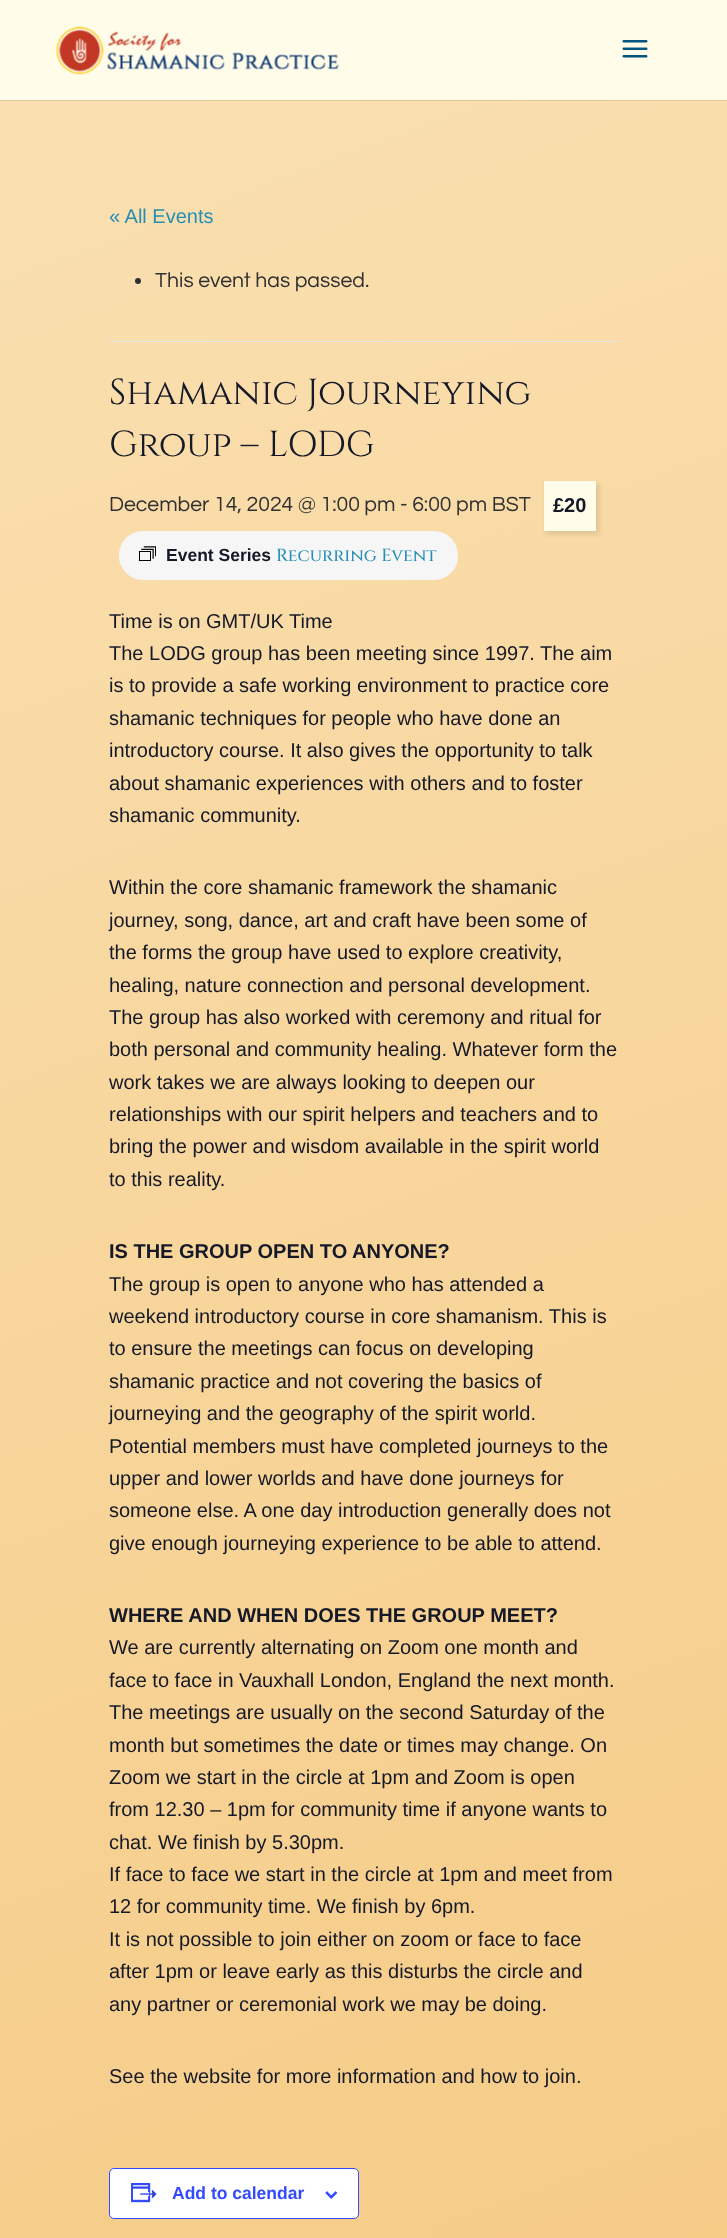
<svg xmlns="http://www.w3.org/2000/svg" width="727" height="2238">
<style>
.a{font:20px Liberation Sans;fill:#258eb6}
.b{font:21.25px Questrial;fill:#303030}
.c{font:36.1px Cinzel;fill:#141827}
.d{font:bold 20px Liberation Sans;fill:#141827}
.e{font:bold 17.5px Liberation Sans;fill:#141827}
.f{font:500 17.5px Cinzel;fill:#258eb6}
.g{font:20px Liberation Sans;fill:#141827}
.h{font:bold 17.5px Liberation Sans;fill:#334aff}
</style>
<defs>
<linearGradient id="g1" gradientUnits="userSpaceOnUse" x1="-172" y1="161" x2="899" y2="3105"><stop offset="0" stop-color="#fae0b1"/><stop offset="1" stop-color="#f4c477"/></linearGradient>
</defs>
<rect width="100%" height="100%" fill="#fff"/>
<path fill="url(#g1)" d="M0 100h727v2138H0z"/>
<path fill="#0000001a" d="M0 100v1h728v-100v99z"/>
<path fill="#fffcea" d="M0 0h727v100H0z"/>
<image href="1.png" x="56" y="26" width="283" height="49"/>
<image href="2.png" x="622" y="40" width="26" height="18"/>
<path fill="#e4e4e4" d="M109 341h510v1H109z"/>
<circle fill="#303030" cx="138" cy="281" r="3"/>
<path fill="#33331126" filter="blur(2.5px)" d="M546 484h53v50H546z"/>
<path fill="#fffcea" d="M544 481h52v50H544z"/>
<rect fill="#f7f6f6" x="119" y="531" width="339" height="49" rx="24"/>
<image href="3.png" x="139" y="546" width="17" height="15"/>
<rect fill="#fff" stroke="#334aff" x="109.5" y="2168.5" width="249" height="50" rx="4.5"/>
<image href="4.png" x="131" y="2183" width="26" height="20"/>
<image href="5.png" x="325" y="2191" width="13" height="8"/>
<text class="a" x="109" y="223">« All Events</text>
<text class="b" x="155" y="287">This event has passed.</text>
<text class="c" x="109" y="404">Shamanic Journeying</text>
<text class="c" x="109" y="456">Group – LODG</text>
<text class="b" x="109" y="511">December 14, 2024 @ 1:00 pm - 6:00 pm BST</text>
<text class="d" x="553" y="512">£20</text>
<text class="e" x="166" y="561">Event Series</text>
<text class="f" x="276" y="561">Recurring Event</text>
<text class="g" x="109" y="628">Time is on GMT/UK Time</text>
<text class="g" x="109" y="660">The LODG group has been meeting since 1997. The aim</text>
<text class="g" x="109" y="692">is to provide a safe working environment to practice core</text>
<text class="g" x="109" y="725">shamanic techniques for people who have done an</text>
<text class="g" x="109" y="757">introductory course. It also gives the opportunity to talk</text>
<text class="g" x="109" y="790">about shamanic experiences with others and to foster</text>
<text class="g" x="109" y="822">shamanic community.</text>
<text class="g" x="109" y="894">Within the core shamanic framework the shamanic</text>
<text class="g" x="109" y="927">journey, song, dance, art and craft have been some of</text>
<text class="g" x="109" y="959">the forms the group have used to explore creativity,</text>
<text class="g" x="109" y="992">healing, nature connection and personal development.</text>
<text class="g" x="109" y="1024">The group has also worked with ceremony and ritual for</text>
<text class="g" x="109" y="1056">both personal and community healing. Whatever form the</text>
<text class="g" x="109" y="1089">work takes we are always looking to deepen our</text>
<text class="g" x="109" y="1121">relationships with our spirit helpers and teachers and to</text>
<text class="g" x="109" y="1153">bring the power and wisdom available in the spirit world</text>
<text class="g" x="109" y="1186">to this reality.</text>
<text class="d" x="109" y="1258">IS THE GROUP OPEN TO ANYONE?</text>
<text class="g" x="109" y="1291">The group is open to anyone who has attended a</text>
<text class="g" x="109" y="1323">weekend introductory course in core shamanism. This is</text>
<text class="g" x="109" y="1355">to ensure the meetings can focus on developing</text>
<text class="g" x="109" y="1388">shamanic practice and not covering the basics of</text>
<text class="g" x="109" y="1420">journeying and the geography of the spirit world.</text>
<text class="g" x="109" y="1453">Potential members must have completed journeys to the</text>
<text class="g" x="109" y="1485">upper and lower worlds and have done journeys for</text>
<text class="g" x="109" y="1517">someone else. A one day introduction generally does not</text>
<text class="g" x="109" y="1550">give enough journeying experience to be able to attend.</text>
<text class="d" x="109" y="1622">WHERE AND WHEN DOES THE GROUP MEET?</text>
<text class="g" x="109" y="1654">We are currently alternating on Zoom one month and</text>
<text class="g" x="109" y="1687">face to face in Vauxhall London, England the next month.</text>
<text class="g" x="109" y="1719">The meetings are usually on the second Saturday of the</text>
<text class="g" x="109" y="1752">month but sometimes the date or times may change. On</text>
<text class="g" x="109" y="1784">Zoom we start in the circle at 1pm and Zoom is open</text>
<text class="g" x="109" y="1816">from 12.30 – 1pm for community time if anyone wants to</text>
<text class="g" x="109" y="1849">chat. We finish by 5.30pm.</text>
<text class="g" x="109" y="1881">If face to face we start in the circle at 1pm and meet from</text>
<text class="g" x="109" y="1913">12 for community time. We finish by 6pm.</text>
<text class="g" x="109" y="1946">It is not possible to join either on zoom or face to face</text>
<text class="g" x="109" y="1978">after 1pm or leave early as this disturbs the circle and</text>
<text class="g" x="109" y="2011">any partner or ceremonial work we may be doing.</text>
<text class="g" x="109" y="2083">See the website for more information and how to join.</text>
<text class="h" x="172" y="2199">Add to calendar</text>
</svg>
